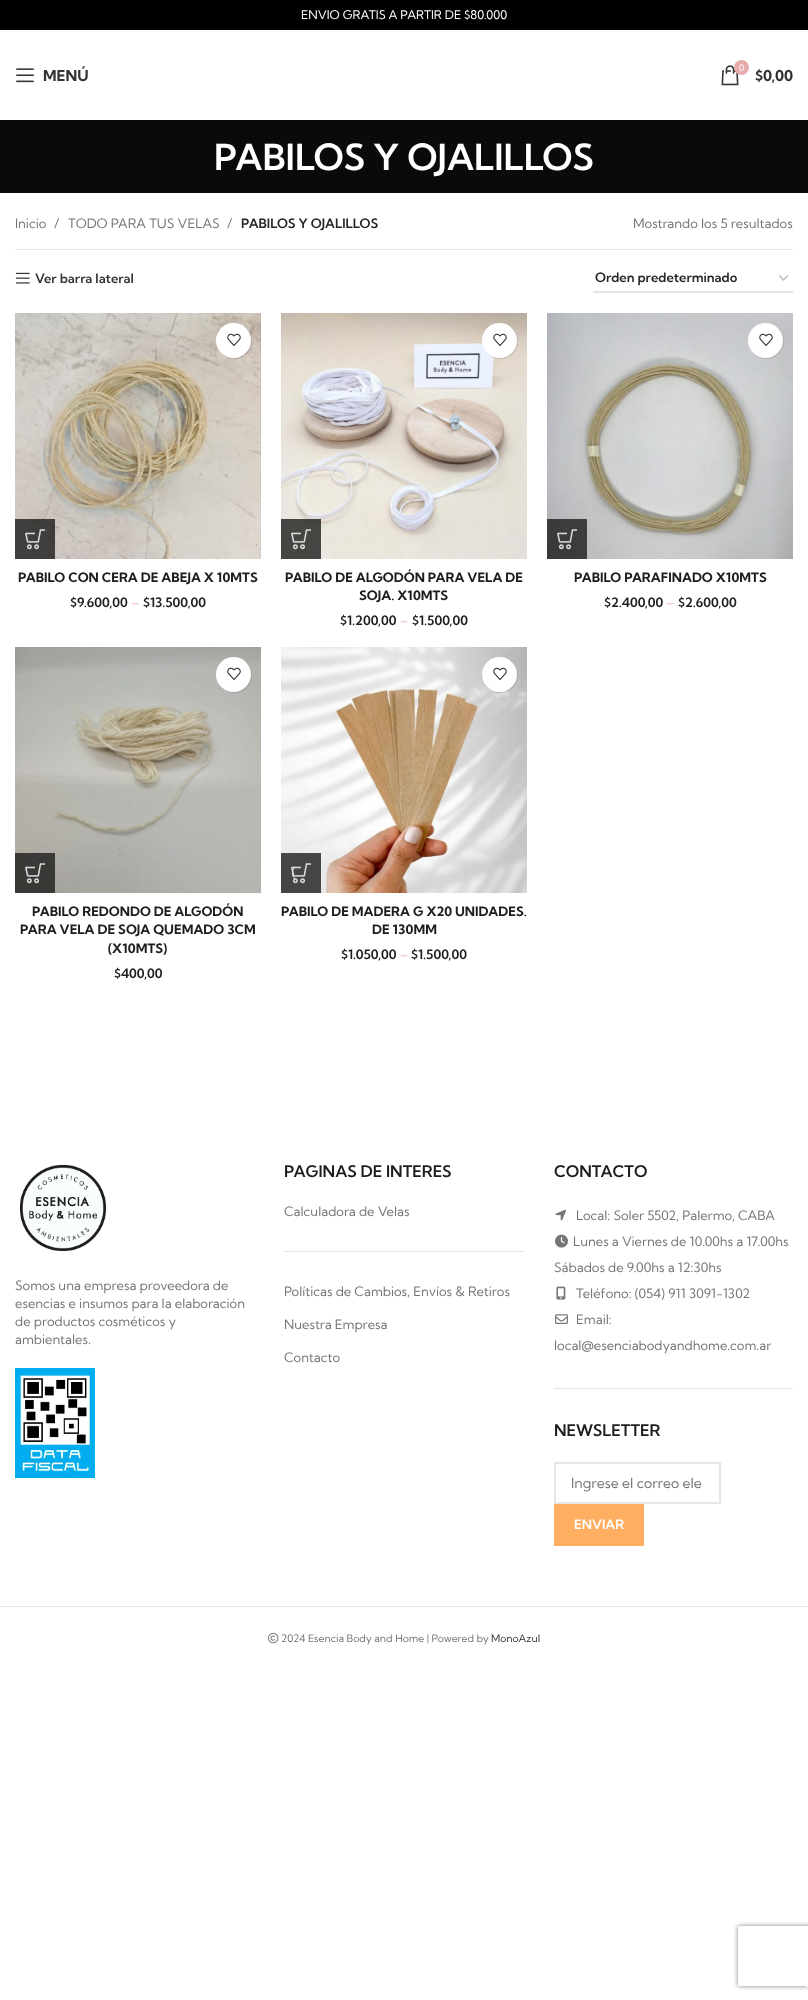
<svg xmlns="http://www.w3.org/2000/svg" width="808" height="2000">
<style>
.a{font:12px Kumbh Sans;fill:#fff}
.b{font:bold 15px Kumbh Sans;fill:#333}
.c{font:9px Kumbh Sans;fill:#fff}
.d{font:600 36px Kumbh Sans;fill:#fff}
.e{font:13px Kumbh Sans;fill:#767676}
.f{font:600 13px Kumbh Sans;fill:#242424}
.g{font:600 13px Kumbh Sans;fill:#333}
.h{font:bold 13px Kumbh Sans;fill:#1d1d1b}
.i{font:600 13px Kumbh Sans;fill:#1d1d1b}
.j{font:13px Kumbh Sans;fill:#e8abab}
.k{font:600 16px Kumbh Sans;fill:#1d1d1b}
.l{font:14px Kumbh Sans;fill:#767676}
.m{font:600 13px Kumbh Sans;fill:#fff}
.n{font:10.4px Kumbh Sans;fill:#767676}
.o{font:10.4px Kumbh Sans;fill:#333}
</style>
<defs>
<clipPath id="clip1"><path d="M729 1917h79v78h-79zm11 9h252c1 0 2 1 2 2v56c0 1-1 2-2 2h-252c-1 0-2-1-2-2v-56c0-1 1-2 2-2z" clip-rule="evenodd"/></clipPath>
</defs>
<rect width="100%" height="100%" fill="#fff"/>
<path fill="#000" d="M0 0h808v30H0z"/>
<image href="1.png" x="16" y="68" width="18" height="15"/>
<image href="2.png" x="721" y="65" width="18" height="21"/>
<circle fill="#e8abab" cx="741.5" cy="67.5" r="7.5"/>
<path fill="#0a0a0a" d="M0 120h808v73H0z"/>
<path fill="#e4e4e4" d="M15 249h778v1H15z"/>
<image href="3.png" x="15" y="272" width="15" height="12"/>
<path fill="none" stroke="#bbb" stroke-width="1.4" d="M779.5 275.5l4 4.5l4.5-4.5"/>
<path fill="#e6e6e6" d="M593 291h200v2H593z"/>
<image href="4.png" x="15" y="313" width="246" height="246"/>
<rect fill="#0000001a" filter="blur(0.5px)" x="217" y="324" width="35" height="35" rx="17.5"/>
<circle fill="#fff" cx="233.5" cy="340.5" r="17.5"/>
<image href="5.png" x="227" y="333" width="14" height="13"/>
<path fill="#1d1d1bcc" d="M15 519h40v40H15z"/>
<image href="6.png" x="25" y="529" width="20" height="21"/>
<image href="7.png" x="281" y="313" width="246" height="246"/>
<rect fill="#0000001a" filter="blur(0.5px)" x="483" y="324" width="35" height="35" rx="17.5"/>
<circle fill="#fff" cx="499.5" cy="340.5" r="17.5"/>
<image href="5.png" x="493" y="333" width="14" height="13"/>
<path fill="#1d1d1bcc" d="M281 519h40v40H281z"/>
<image href="8.png" x="291" y="529" width="20" height="21"/>
<image href="9.png" x="547" y="313" width="246" height="246"/>
<rect fill="#0000001a" filter="blur(0.5px)" x="749" y="324" width="35" height="35" rx="17.5"/>
<circle fill="#fff" cx="765.5" cy="340.5" r="17.5"/>
<image href="5.png" x="759" y="333" width="14" height="13"/>
<path fill="#1d1d1bcc" d="M547 519h40v40H547z"/>
<image href="10.png" x="557" y="529" width="20" height="21"/>
<image href="11.png" x="15" y="647" width="246" height="246"/>
<rect fill="#0000001a" filter="blur(0.5px)" x="217" y="658" width="35" height="35" rx="17.5"/>
<circle fill="#fff" cx="233.5" cy="674.5" r="17.5"/>
<image href="5.png" x="227" y="667" width="14" height="13"/>
<path fill="#1d1d1bcc" d="M15 853h40v40H15z"/>
<image href="12.png" x="25" y="863" width="20" height="21"/>
<image href="13.png" x="281" y="647" width="246" height="246"/>
<rect fill="#0000001a" filter="blur(0.5px)" x="483" y="658" width="35" height="35" rx="17.5"/>
<circle fill="#fff" cx="499.5" cy="674.5" r="17.5"/>
<image href="5.png" x="493" y="667" width="14" height="13"/>
<path fill="#1d1d1bcc" d="M281 853h40v40H281z"/>
<image href="14.png" x="291" y="863" width="20" height="21"/>
<path fill="none" stroke="#e7e7e7" d="M295 879c-3.5-3.5-3.5-8.5 0-12"/>
<image href="15.png" x="20" y="1165" width="86" height="86"/>
<image href="16.png" x="15" y="1368" width="80" height="110"/>
<path fill="#e4e4e4" d="M284 1251h240v1H284z"/>
<path fill="#e4e4e4" d="M554 1388h239v1H554z"/>
<image href="17.png" x="555" y="1209" width="11" height="12"/>
<image href="18.png" x="555" y="1234" width="13" height="14"/>
<image href="19.png" x="556" y="1286" width="10" height="14"/>
<image href="20.png" x="555" y="1314" width="13" height="10"/>
<path fill="none" stroke="#e6e6e6" stroke-width="2" d="M555 1463h165v40H555z"/>
<path fill="#ffae62" d="M554 1504h90v42H554z"/>
<path fill="#e4e4e4" d="M0 1606h808v1H0z"/>
<image href="21.png" x="268" y="1632" width="11" height="12"/>
<g clip-path="url(#clip1)">
<rect fill="#808080" filter="blur(2.5px)" x="738" y="1926" width="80" height="60" rx="2"/>
</g>
<rect fill="#fff" x="796" y="1948" width="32" height="40" rx="20"/>
<text class="a" x="301" y="19">ENVIO GRATIS A PARTIR DE $80.000</text>
<text class="b" x="43" y="81">MENÚ</text>
<text class="c" x="739" y="71">0</text>
<text class="b" x="755" y="81">$0,00</text>
<text class="d" x="214" y="170">PABILOS Y OJALILLOS</text>
<text class="e" x="15" y="228">Inicio</text>
<text class="e" x="54" y="228">/</text>
<text class="e" x="68" y="228">TODO PARA TUS VELAS</text>
<text class="e" x="227" y="228">/</text>
<text class="f" x="241" y="228">PABILOS Y OJALILLOS</text>
<text class="e" x="633" y="228">Mostrando los 5 resultados</text>
<text class="g" x="35" y="283">Ver barra lateral</text>
<text class="f" x="595" y="282">Orden predeterminado</text>
<text class="h" x="18" y="582">PABILO CON CERA DE ABEJA X 10MTS</text>
<text class="i" x="70" y="607">$9.600,00</text>
<text class="j" x="131" y="607">–</text>
<text class="i" x="143" y="607">$13.500,00</text>
<text class="h" x="285" y="582">PABILO DE ALGODÓN PARA VELA DE</text>
<text class="h" x="359" y="600">SOJA. X10MTS</text>
<text class="i" x="340" y="625">$1.200,00</text>
<text class="j" x="400" y="625">–</text>
<text class="i" x="412" y="625">$1.500,00</text>
<text class="h" x="574" y="582">PABILO PARAFINADO X10MTS</text>
<text class="i" x="604" y="607">$2.400,00</text>
<text class="j" x="666" y="607">–</text>
<text class="i" x="678" y="607">$2.600,00</text>
<text class="h" x="32" y="916">PABILO REDONDO DE ALGODÓN</text>
<text class="h" x="20" y="934">PARA VELA DE SOJA QUEMADO 3CM</text>
<text class="h" x="108" y="953">(X10MTS)</text>
<text class="i" x="114" y="978">$400,00</text>
<text class="h" x="281" y="916">PABILO DE MADERA G X20 UNIDADES.</text>
<text class="h" x="372" y="934">DE 130MM</text>
<text class="i" x="341" y="959">$1.050,00</text>
<text class="j" x="400" y="959">–</text>
<text class="i" x="411" y="959">$1.500,00</text>
<text class="e" x="15" y="1290">Somos una empresa proveedora de</text>
<text class="e" x="15" y="1308">esencias e insumos para la elaboración</text>
<text class="e" x="15" y="1326">de productos cosméticos y</text>
<text class="e" x="15" y="1344">ambientales.</text>
<text class="k" x="284" y="1177">PAGINAS DE INTERES</text>
<text class="e" x="284" y="1216">Calculadora de Velas</text>
<text class="e" x="284" y="1296">Políticas de Cambios, Envíos &amp; Retiros</text>
<text class="e" x="284" y="1329">Nuestra Empresa</text>
<text class="e" x="284" y="1362">Contacto</text>
<text class="k" x="554" y="1177">CONTACTO</text>
<text class="e" x="576" y="1220">Local: Soler 5502, Palermo, CABA</text>
<text class="e" x="573" y="1246">Lunes a Viernes de 10.00hs a 17.00hs</text>
<text class="e" x="554" y="1272">Sábados de 9.00hs a 12:30hs</text>
<text class="e" x="576" y="1298">Teléfono: (054) 911 3091-1302</text>
<text class="e" x="576" y="1324">Email:</text>
<text class="e" x="554" y="1350">local@esenciabodyandhome.com.ar</text>
<text class="k" x="554" y="1436">NEWSLETTER</text>
<text class="l" x="571" y="1488">Ingrese el correo ele</text>
<text class="m" x="574" y="1529">ENVIAR</text>
<text class="n" x="281" y="1642">2024 Esencia Body and Home | Powered by</text>
<text class="o" x="491" y="1642">MonoAzul</text>
</svg>
